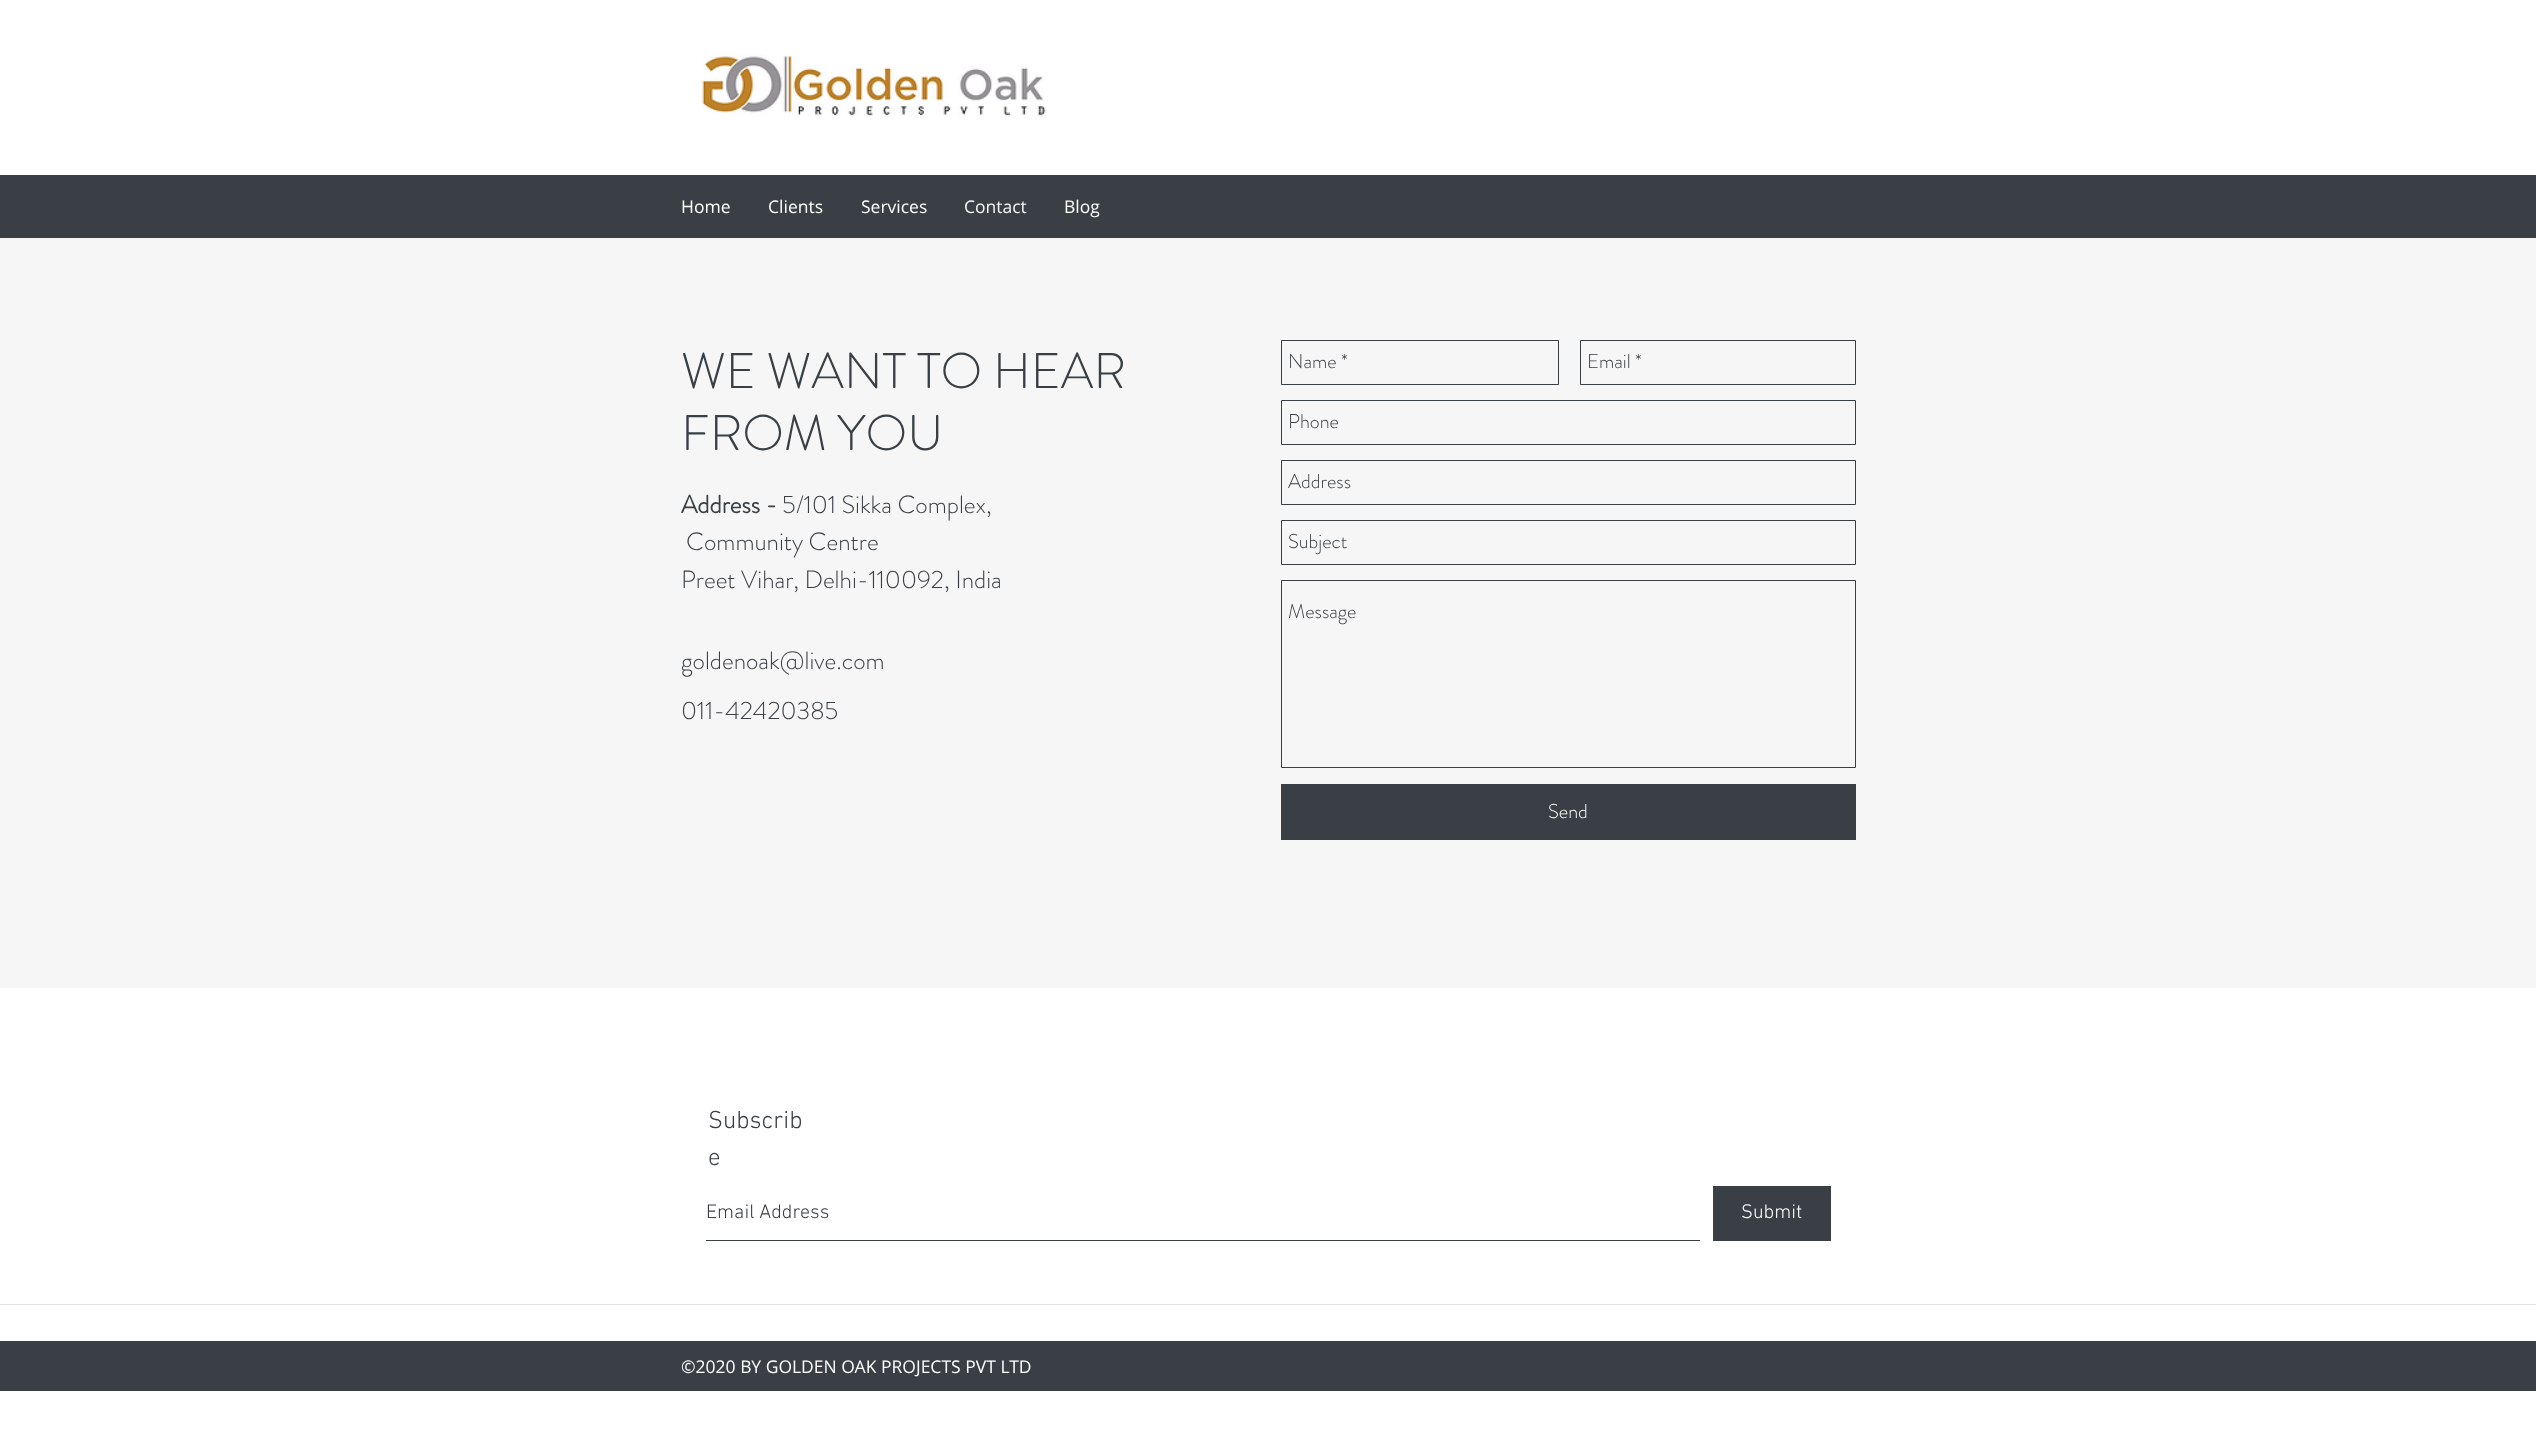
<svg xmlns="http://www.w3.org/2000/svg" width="2536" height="1442">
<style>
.a{font:17.5px Open Sans;fill:#fff}
.b{font:17.5px Open Sans;fill:#f6f6f6}
.c{font:300 50px 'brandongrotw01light';fill:#393f44}
.d{font:300 20px 'brandongrotw01light';fill:#393f44}
.e{font:300 20px 'brandongrotw01light';fill:#fff}
.f{font:bold 25px 'brandongrotw01light';fill:#393f44}
.g{font:300 25px 'brandongrotw01light';fill:#393f44}
.h{font:300 25px 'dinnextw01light';fill:#393f44}
.i{font:300 20px 'dinnextw01light';fill:#393f44}
.j{font:300 20px 'dinnextw01light';fill:#fff}
</style>
<rect width="100%" height="100%" fill="#fff"/>
<image href="1.png" x="702" y="54" width="344" height="64"/>
<path fill="#393f44" d="M0 175h2536v63H0z"/>
<path fill="#f6f6f6" d="M0 238h2536v750H0z"/>
<path fill="none" stroke="#393f44" d="M1281.5 340.5h277v44H1281.5z"/>
<path fill="none" stroke="#393f44" d="M1580.5 340.5h275v44H1580.5z"/>
<path fill="none" stroke="#393f44" d="M1281.5 400.5h574v44H1281.5z"/>
<path fill="none" stroke="#393f44" d="M1281.5 460.5h574v44H1281.5z"/>
<path fill="none" stroke="#393f44" d="M1281.5 520.5h574v44H1281.5z"/>
<path fill="none" stroke="#393f44" d="M1281.5 580.5h574v187H1281.5z"/>
<path fill="#393f44" d="M1281 784h575v56H1281z"/>
<path fill="#393f44" d="M706 1240h994v1H706z"/>
<path fill="#393f44" d="M1713 1186h118v55H1713z"/>
<path fill="#e1e2e3" d="M0 1304h2536v1H0z"/>
<path fill="#393f44" d="M0 1341h2536v50H0z"/>
<text class="a" x="681" y="213">Home</text>
<text class="a" x="768" y="213">Clients</text>
<text class="a" x="861" y="213">Services</text>
<text class="b" x="964" y="213">Contact</text>
<text class="a" x="1064" y="213">Blog</text>
<text class="c" x="681" y="388">WE WANT TO HEAR</text>
<text class="c" x="681" y="450">FROM YOU</text>
<text class="d" x="1288" y="368">Name *</text>
<text class="d" x="1587" y="368">Email *</text>
<text class="d" x="1288" y="428">Phone</text>
<text class="d" x="1288" y="488">Address</text>
<text class="d" x="1288" y="548">Subject</text>
<text class="d" x="1288" y="618">Message</text>
<text class="e" x="1548" y="818">Send</text>
<text class="f" x="681" y="513">Address -</text>
<text class="g" x="782" y="513">5/101 Sikka Complex,</text>
<text class="g" x="686" y="550">Community Centre</text>
<text class="g" x="681" y="588">Preet Vihar, Delhi-110092, India</text>
<text class="g" x="681" y="669">goldenoak@live.com</text>
<text class="g" x="681" y="719">011-42420385</text>
<text class="h" x="708" y="1128">Subscrib</text>
<text class="h" x="708" y="1165">e</text>
<text class="i" x="706" y="1218">Email Address</text>
<text class="j" x="1741" y="1218">Submit</text>
<text class="a" x="681" y="1373">©2020 BY GOLDEN OAK PROJECTS PVT LTD</text>
</svg>
